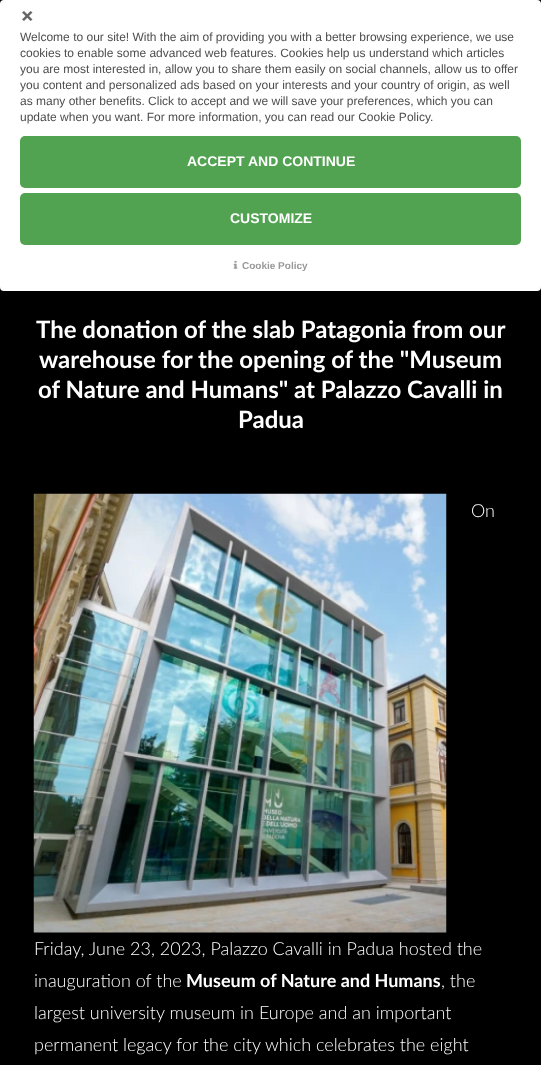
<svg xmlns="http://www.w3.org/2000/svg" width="541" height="1065">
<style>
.a{font:12px Liberation Sans;fill:#4d4d4d}
.b{font:bold 14px Liberation Sans;fill:#fff}
.c{font:bold 10px Liberation Sans;fill:#999}
.d{font:bold 24px Lato;fill:#fff}
.e{font:300 18px Lato;fill:#fff}
.f{font:bold 18px Lato;fill:#fff}
</style>
<rect width="100%" height="100%" fill="#000"/>
<rect fill="#fff" width="541" height="291" rx="4"/>
<path fill="#666" d="M30.5 11l2 1.5l-8.5 8.5l-2-1.5z"/>
<path fill="#666" d="M22 12.5l2-1.5l8.5 8.5l-2 1.5z"/>
<rect fill="#51a351" x="20" y="136" width="501" height="52" rx="5"/>
<rect fill="#51a351" x="20" y="193" width="501" height="52" rx="5"/>
<image href="1.png" x="233" y="260" width="5" height="9"/>
<image href="2.png" x="33" y="493" width="414" height="440"/>
<text class="a" x="20" y="41">Welcome to our site! With the aim of providing you with a better browsing experience, we use</text>
<text class="a" x="20" y="57">cookies to enable some advanced web features. Cookies help us understand which articles</text>
<text class="a" x="20" y="73">you are most interested in, allow you to share them easily on social channels, allow us to offer</text>
<text class="a" x="20" y="89">you content and personalized ads based on your interests and your country of origin, as well</text>
<text class="a" x="20" y="105">as many other benefits. Click to accept and we will save your preferences, which you can</text>
<text class="a" x="20" y="121">update when you want. For more information, you can read our Cookie Policy.</text>
<text class="b" x="187" y="166">ACCEPT AND CONTINUE</text>
<text class="b" x="230" y="223">CUSTOMIZE</text>
<text class="c" x="242" y="269">Cookie Policy</text>
<text class="d" x="36" y="338">The donation of the slab Patagonia from our</text>
<text class="d" x="39" y="368">warehouse for the opening of the "Museum</text>
<text class="d" x="38" y="398">of Nature and Humans" at Palazzo Cavalli in</text>
<text class="d" x="238" y="428">Padua</text>
<text class="e" x="471" y="517">On</text>
<text class="e" x="34" y="955">Friday, June 23, 2023, Palazzo Cavalli in Padua hosted the</text>
<text class="e" x="34" y="987">inauguration of the</text>
<text class="f" x="186" y="987">Museum of Nature and Humans</text>
<text class="e" x="441" y="987">, the</text>
<text class="e" x="34" y="1019">largest university museum in Europe and an important</text>
<text class="e" x="34" y="1051">permanent legacy for the city which celebrates the eight</text>
</svg>
